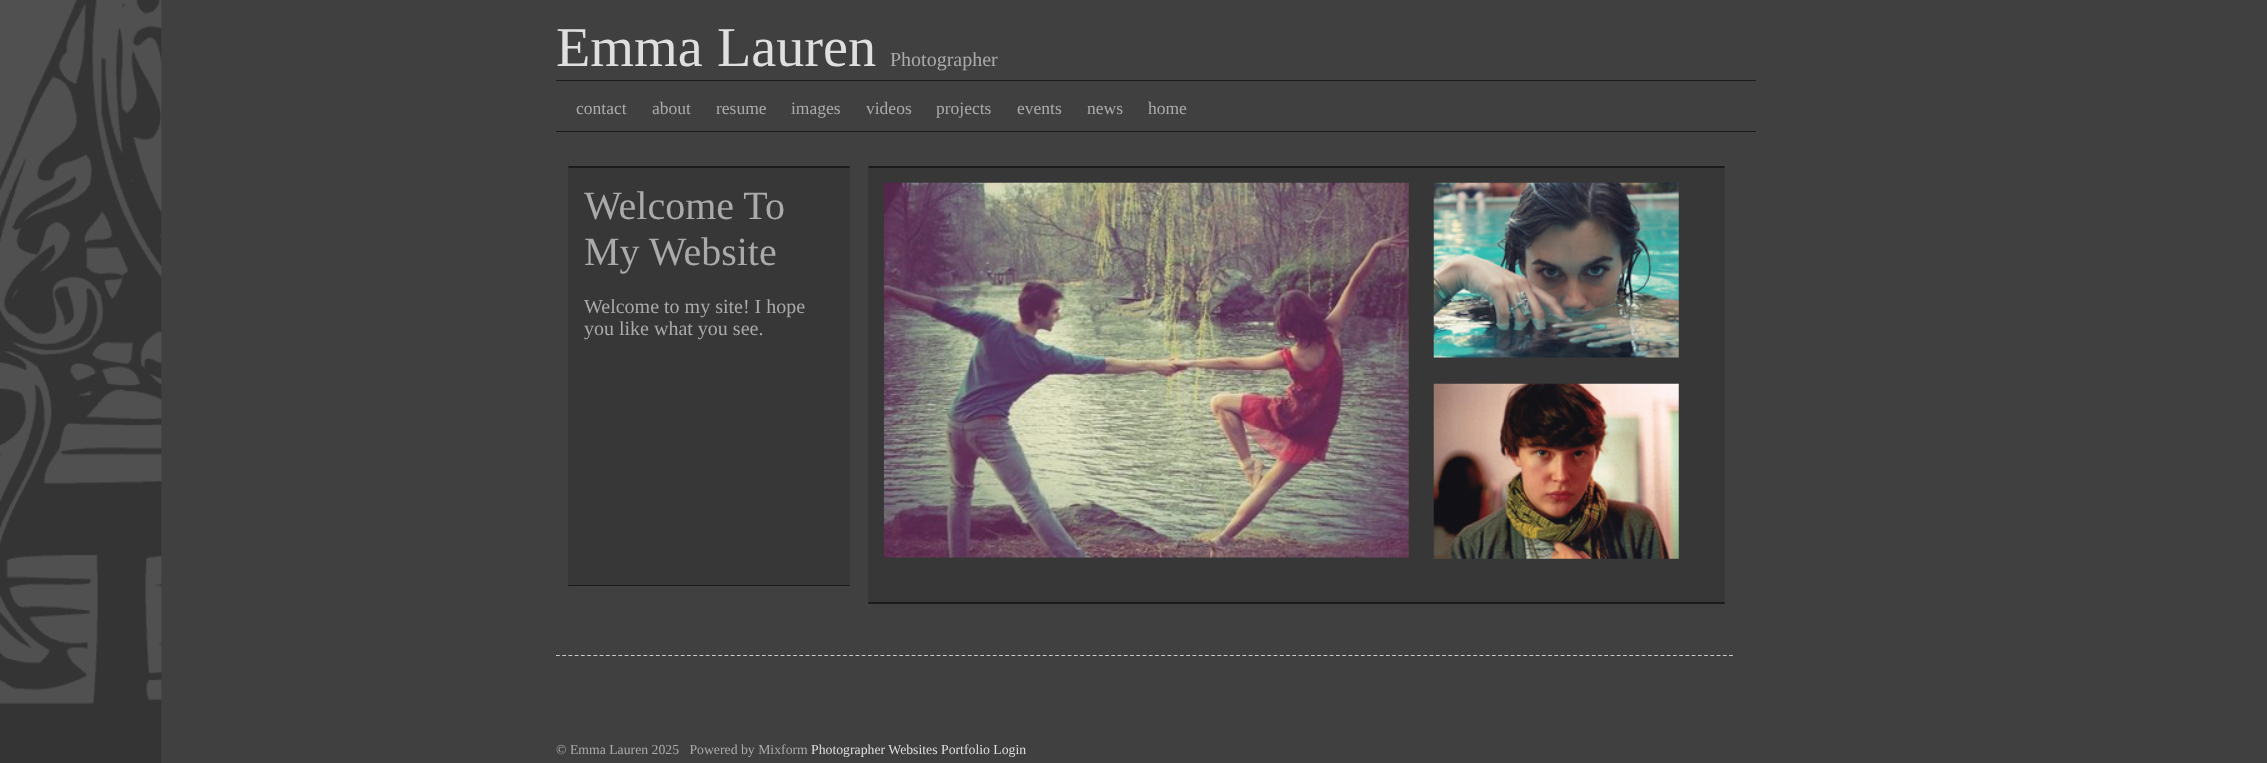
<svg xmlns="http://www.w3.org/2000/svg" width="2267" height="763">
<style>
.a{font:56.25px Liberation Serif;fill:#dfdfdf}
.b{font:20px Liberation Serif;fill:#aaa}
.c{font:17.5px Liberation Serif;fill:#aaa}
.d{font:40px Liberation Serif;fill:#aaa}
.e{font:13.75px Liberation Serif;fill:#aaa}
.f{font:13.75px Liberation Serif;fill:#dfdfdf}
</style>
<rect width="100%" height="100%" fill="#404040"/>
<image href="1.png" x="0" y="0" width="162" height="763"/>
<path fill="#1b1b1b" d="M556 80h1200v1H556z"/>
<path fill="#1b1b1b" d="M556 131h1200v1H556z"/>
<path fill="none" stroke="#ccc" stroke-width="1.2" stroke-dasharray="3.75 2.49" d="M556 655.5h1178"/>
<path fill="#373737" d="M568 166h282v420H568z"/>
<path fill="#1b1b1b" d="M568 166h282l-1 2h-280z"/>
<path fill="#1b1b1b" d="M850 586h-282l1-1h280z"/>
<path fill="#373737" d="M868 166h857v438H868z"/>
<path fill="#1b1b1b" d="M868 166h857l-1 2h-855z"/>
<path fill="#1b1b1b" d="M1725 604h-857l1-2h855z"/>
<image href="2.png" x="883" y="182" width="526" height="376"/>
<image href="3.png" x="1433" y="182" width="246" height="176"/>
<image href="4.png" x="1433" y="383" width="246" height="176"/>
<text class="a" x="556" y="66">Emma Lauren</text>
<text class="b" x="890" y="66">Photographer</text>
<text class="c" x="576" y="114">contact</text>
<text class="c" x="652" y="114">about</text>
<text class="c" x="716" y="114">resume</text>
<text class="c" x="791" y="114">images</text>
<text class="c" x="866" y="114">videos</text>
<text class="c" x="936" y="114">projects</text>
<text class="c" x="1017" y="114">events</text>
<text class="c" x="1087" y="114">news</text>
<text class="c" x="1148" y="114">home</text>
<text class="d" x="584" y="219">Welcome To</text>
<text class="d" x="584" y="265">My Website</text>
<text class="b" x="584" y="313">Welcome to my site! I hope</text>
<text class="b" x="584" y="335">you like what you see.</text>
<text class="e" xml:space="preserve" x="556" y="754">© Emma Lauren 2025   Powered by Mixform</text>
<text class="f" x="811" y="754">Photographer Websites Portfolio Login</text>
</svg>
